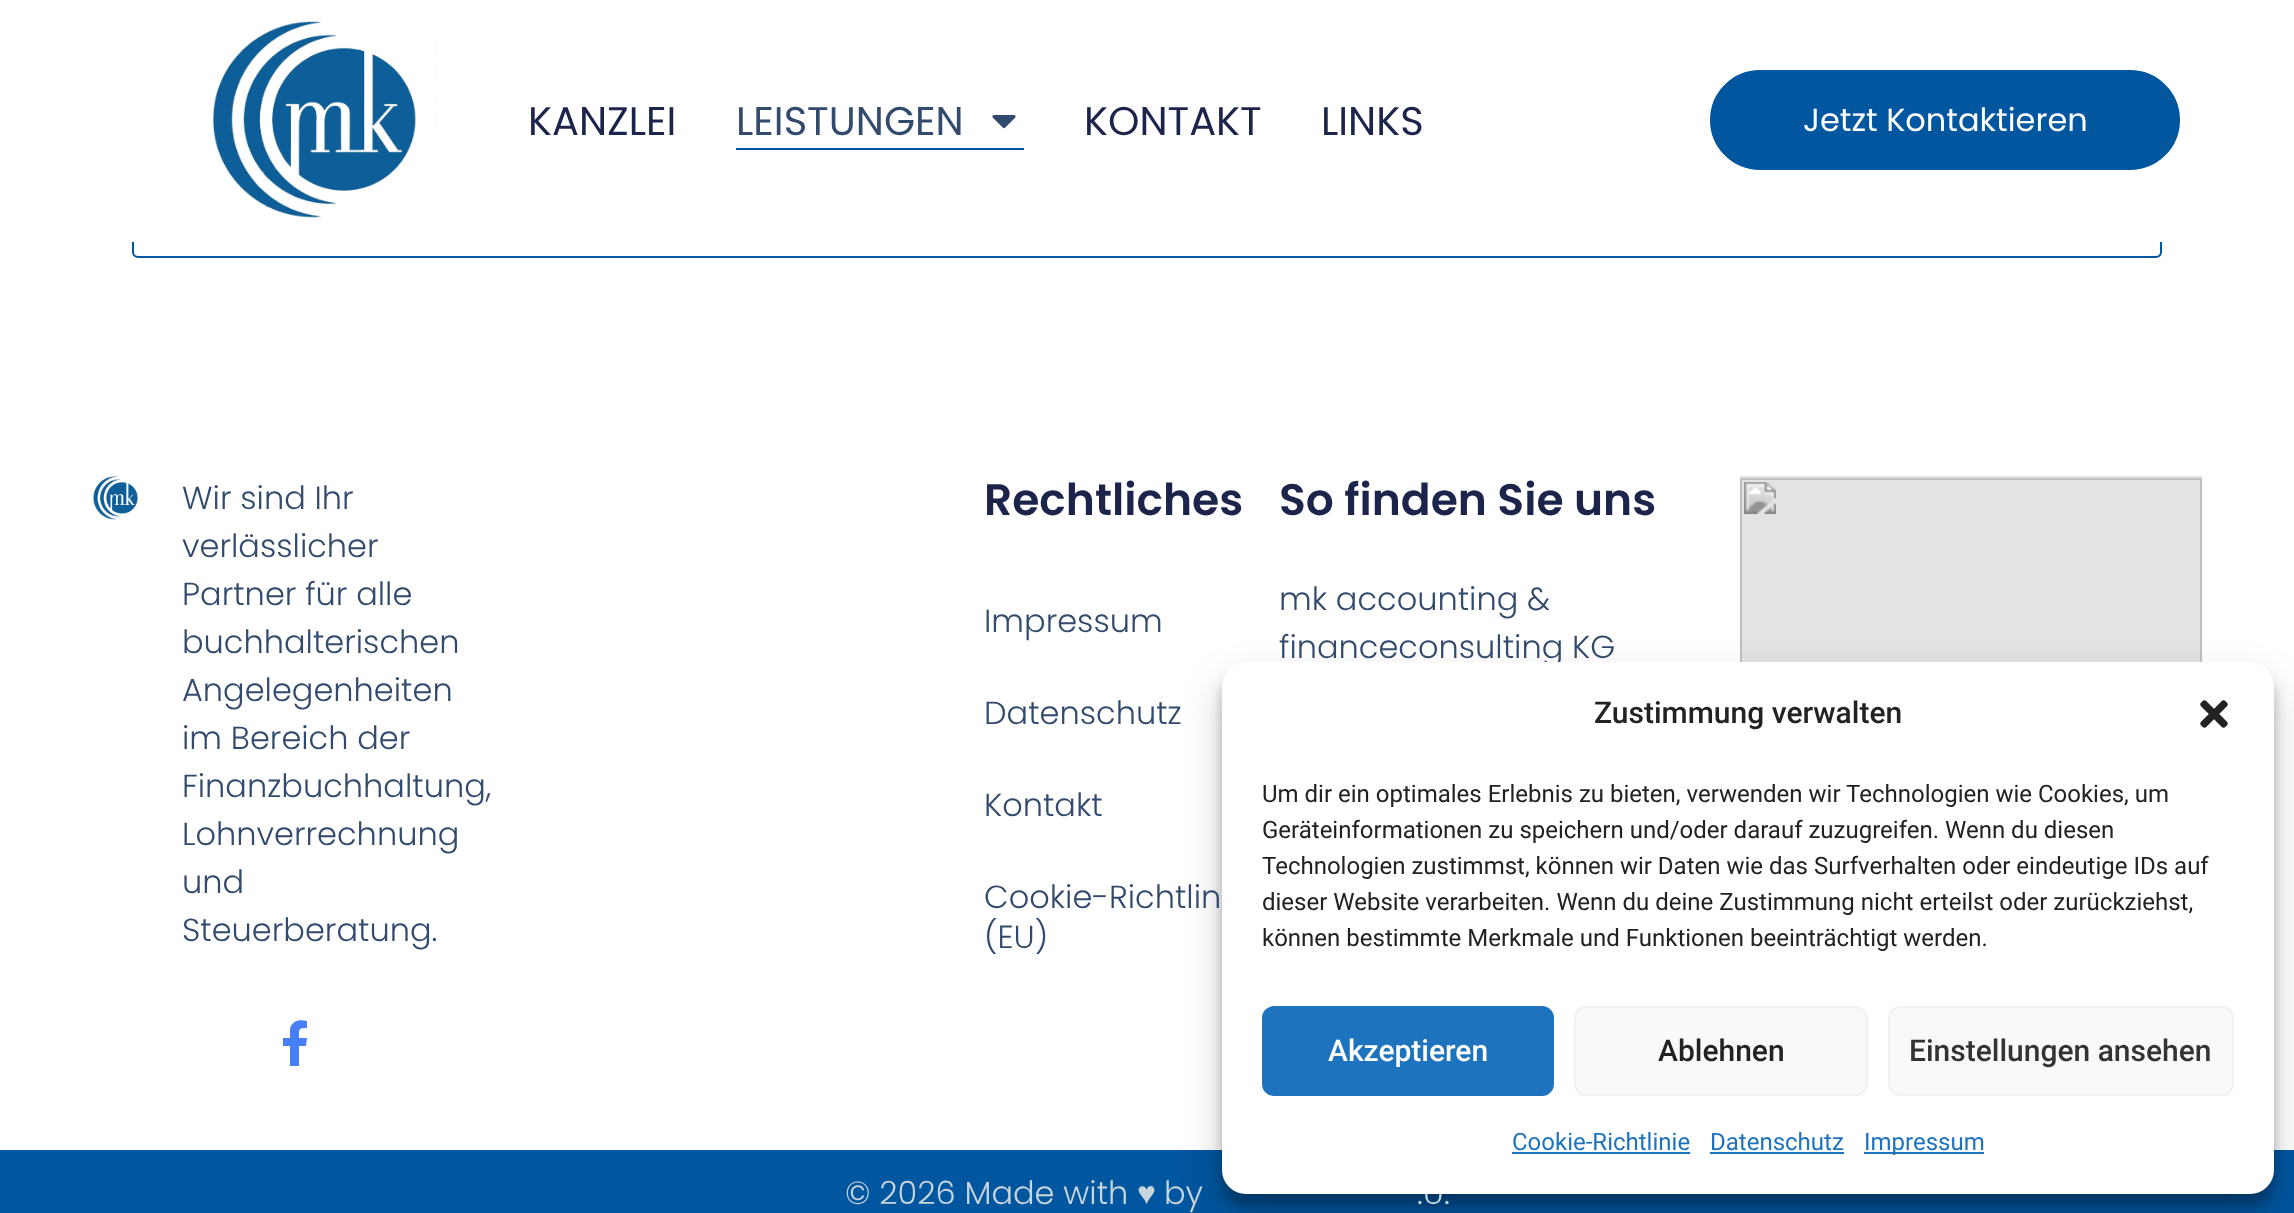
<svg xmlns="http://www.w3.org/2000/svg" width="2294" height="1213">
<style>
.a{font:40px Poppins;fill:#1c244b}
.b{font:40px Poppins;fill:#324a6d}
.c{font:32px Poppins;fill:#fff}
.d{font:300 32px Poppins;fill:#324a6d}
.e{font:600 44px Poppins;fill:#1c244b}
.f{font:300 32px Poppins;fill:#c8d5dc}
.g{font:32px Liberation Sans;fill:#c8d5dc}
.h{font:500 30px Roboto;fill:#222}
.i{font:24px Roboto;fill:#222}
.j{font:500 30px Roboto;fill:#fff}
.k{font:500 30px Roboto;fill:#333}
.l{font:24px Roboto;fill:#1e73be}
</style>
<rect width="100%" height="100%" fill="#fff"/>
<rect fill="none" stroke="#00569f" stroke-width="2" x="133" y="147" width="2028" height="110" rx="5"/>
<path fill="#fff" d="M132 146h2030v96H132z"/>
<image href="1.png" x="212" y="20" width="224" height="198"/>
<image href="2.png" x="992" y="115" width="24" height="14"/>
<path fill="#00569f" d="M736 148h288v2H736z"/>
<rect fill="#00569f" stroke="#00569f" stroke-width="2" x="1711" y="71" width="468" height="98" rx="49"/>
<image href="3.png" x="93" y="476" width="45" height="44"/>
<path fill="#467ff7" d="M306 1046l1-8h-8c0-9-1-10 8-10v-7c-7-2-15-1-17 8v9h-7v8h7v20h9v-20z"/>
<image href="4.png" x="1740" y="476" width="462" height="186"/>
<path fill="#00569f" d="M0 1150h2294v63H0z"/>
<rect fill="#0000003b" filter="blur(6px)" x="1222" y="674" width="1052" height="532" rx="24"/>
<rect fill="#00000030" filter="blur(20px)" x="1222" y="682" width="1052" height="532" rx="24"/>
<text class="a" x="528" y="135">KANZLEI</text>
<text class="b" x="736" y="135">LEISTUNGEN</text>
<text class="a" x="1084" y="135">KONTAKT</text>
<text class="a" x="1321" y="135">LINKS</text>
<text class="c" x="1803" y="131">Jetzt Kontaktieren</text>
<text class="d" x="182" y="509">Wir sind Ihr</text>
<text class="d" x="182" y="557">verlässlicher</text>
<text class="d" x="182" y="605">Partner für alle</text>
<text class="d" x="182" y="653">buchhalterischen</text>
<text class="d" x="182" y="701">Angelegenheiten</text>
<text class="d" x="182" y="749">im Bereich der</text>
<text class="d" x="182" y="797">Finanzbuchhaltung,</text>
<text class="d" x="182" y="845">Lohnverrechnung</text>
<text class="d" x="182" y="893">und</text>
<text class="d" x="182" y="941">Steuerberatung.</text>
<text class="e" x="984" y="515">Rechtliches</text>
<text class="d" x="984" y="632">Impressum</text>
<text class="d" x="984" y="724">Datenschutz</text>
<text class="d" x="984" y="816">Kontakt</text>
<text class="d" x="984" y="908">Cookie-Richtlin</text>
<text class="d" x="984" y="948">(EU)</text>
<text class="e" x="1279" y="515">So finden Sie uns</text>
<text class="d" x="1279" y="610">mk accounting &amp;</text>
<text class="d" x="1279" y="658">financeconsulting KG</text>
<text class="f" x="845" y="1204">© 2026 Made with</text>
<text class="g" x="1137" y="1204">♥</text>
<text class="f" x="1164" y="1204">by</text>
<text class="f" x="1417" y="1204">.U.</text>
<rect fill="#fff" x="1222" y="662" width="1052" height="532" rx="24"/>
<text class="h" x="1594" y="723">Zustimmung verwalten</text>
<image href="5.png" x="2200" y="700" width="28" height="28"/>
<text class="i" x="1262" y="802">Um dir ein optimales Erlebnis zu bieten, verwenden wir Technologien wie Cookies, um</text>
<text class="i" x="1262" y="838">Geräteinformationen zu speichern und/oder darauf zuzugreifen. Wenn du diesen</text>
<text class="i" x="1262" y="874">Technologien zustimmst, können wir Daten wie das Surfverhalten oder eindeutige IDs auf</text>
<text class="i" x="1262" y="910">dieser Website verarbeiten. Wenn du deine Zustimmung nicht erteilst oder zurückziehst,</text>
<text class="i" x="1262" y="946">können bestimmte Merkmale und Funktionen beeinträchtigt werden.</text>
<rect fill="#1e73be" stroke="#1e73be" stroke-width="2" x="1263" y="1007" width="290" height="88" rx="11"/>
<text class="j" x="1328" y="1061">Akzeptieren</text>
<rect fill="#f9f9f9" stroke="#f2f2f2" stroke-width="2" x="1575" y="1007" width="292" height="88" rx="11"/>
<text class="h" x="1658" y="1061">Ablehnen</text>
<rect fill="#f9f9f9" stroke="#f2f2f2" stroke-width="2" x="1889" y="1007" width="344" height="88" rx="11"/>
<text class="k" x="1909" y="1061">Einstellungen ansehen</text>
<text class="l" x="1512" y="1150">Cookie-Richtlinie</text>
<path fill="#1e73be" d="M1512 1152h178v2H1512z"/>
<text class="l" x="1710" y="1150">Datenschutz</text>
<path fill="#1e73be" d="M1710 1152h134v2H1710z"/>
<path fill="#1e73be" d="M1864 1152h120v2H1864z"/>
<text class="l" x="1864" y="1150">Impressum</text>
</svg>
